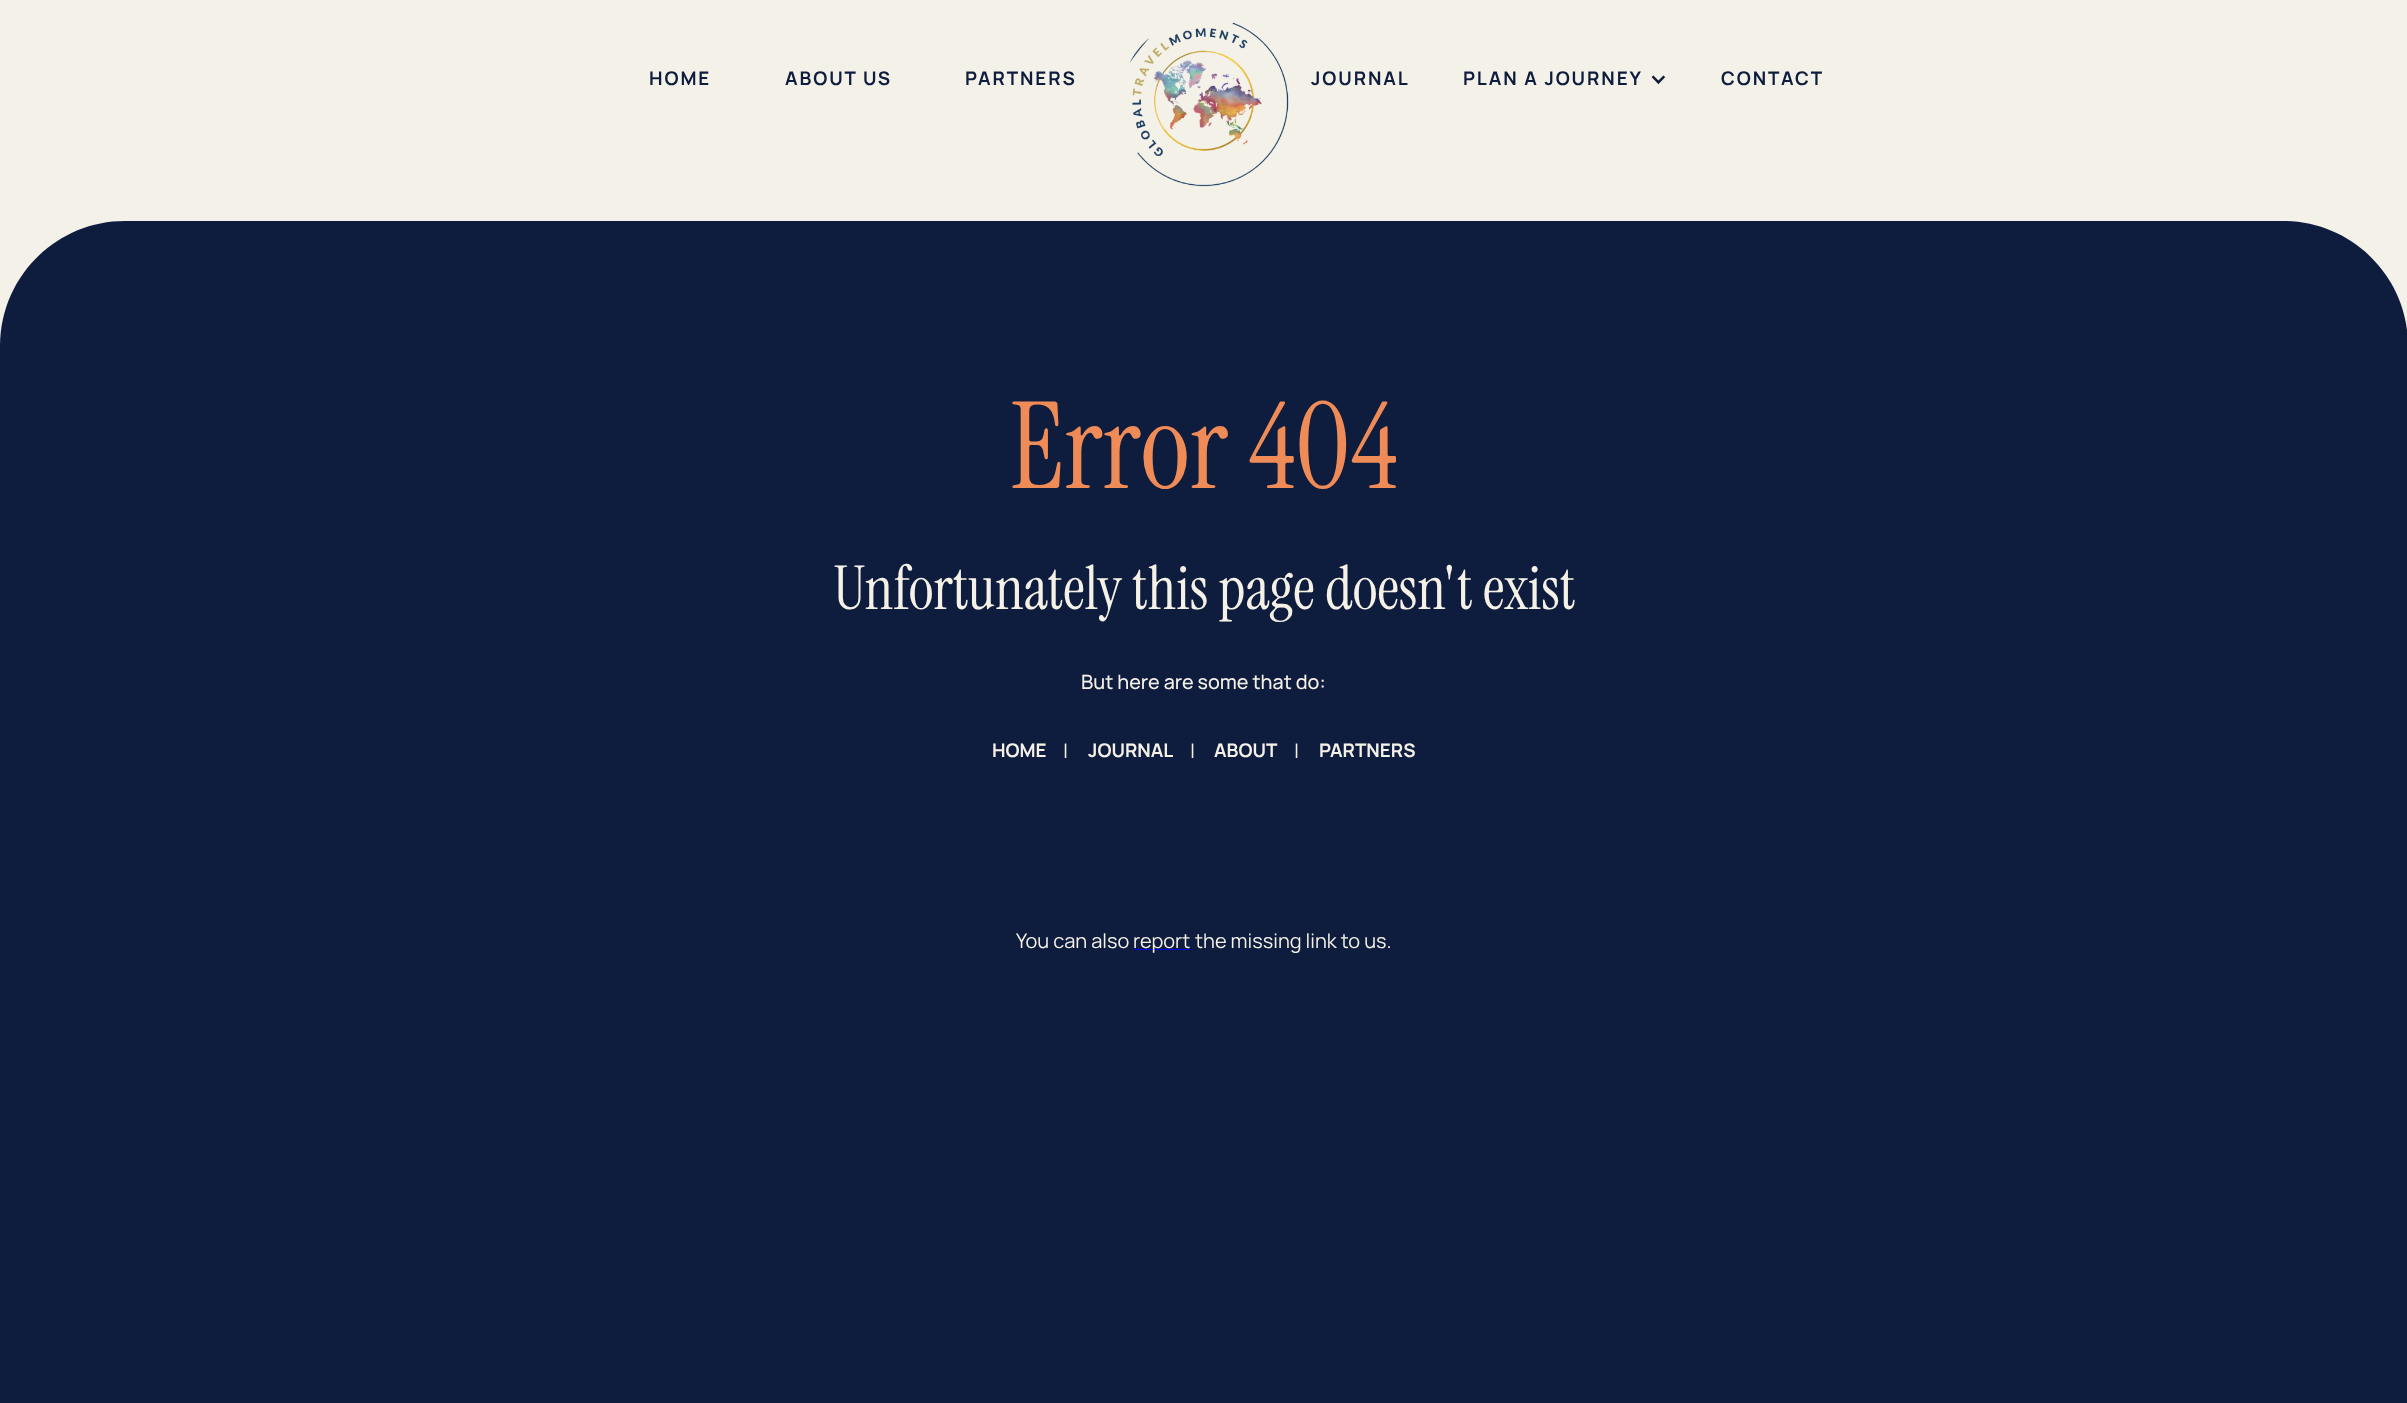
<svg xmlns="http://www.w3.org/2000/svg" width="2407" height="1403">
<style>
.a{font:bold 18.75px Manrope;letter-spacing:1.9px;fill:#0e1c3e}
.b{font:120px Instrument Serif;fill:#ef8b57}
.c{font:60.5px Instrument Serif;fill:#f5f1e7}
.d{font:500 19.75px Manrope;fill:#f5f1e7}
.e{font:bold 18.75px Manrope;fill:#f5f1e7}
.f{font:20px Manrope;letter-spacing:3px;fill:#f5f1e7}
.g{font:20px Manrope;fill:#f5f1e7}
</style>
<rect width="100%" height="100%" fill="#f4f1e8"/>
<image href="1.png" x="1129" y="22" width="160" height="165"/>
<image href="2.png" x="1651" y="75" width="15" height="10"/>
<path fill="#0e1c3e" d="M125 221h2158c69 0 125 56 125 125v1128h-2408v-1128c0-69 56-125 125-125z"/>
<path fill="#00e" d="M1134 949h57v1H1134z"/>
<text class="a" x="649" y="85">HOME</text>
<text class="a" x="785" y="85">ABOUT US</text>
<text class="a" x="965" y="85">PARTNERS</text>
<text class="a" x="1311" y="85">JOURNAL</text>
<text class="a" x="1463" y="85">PLAN A JOURNEY</text>
<text class="a" x="1721" y="85">CONTACT</text>
<text class="b" x="1010" y="488">Error 404</text>
<text class="c" x="833" y="609">Unfortunately this page doesn't exist</text>
<text class="d" x="1081" y="689">But here are some that do:</text>
<text class="e" x="992" y="757">HOME</text>
<text class="f" x="1063" y="758">|</text>
<text class="e" x="1088" y="757">JOURNAL</text>
<text class="f" x="1190" y="758">|</text>
<text class="e" x="1214" y="757">ABOUT</text>
<text class="f" x="1294" y="758">|</text>
<text class="e" x="1319" y="757">PARTNERS</text>
<text class="g" x="1016" y="948">You can also</text>
<text class="g" x="1133" y="948">report</text>
<text class="g" x="1195" y="948">the missing link to us.</text>
</svg>
